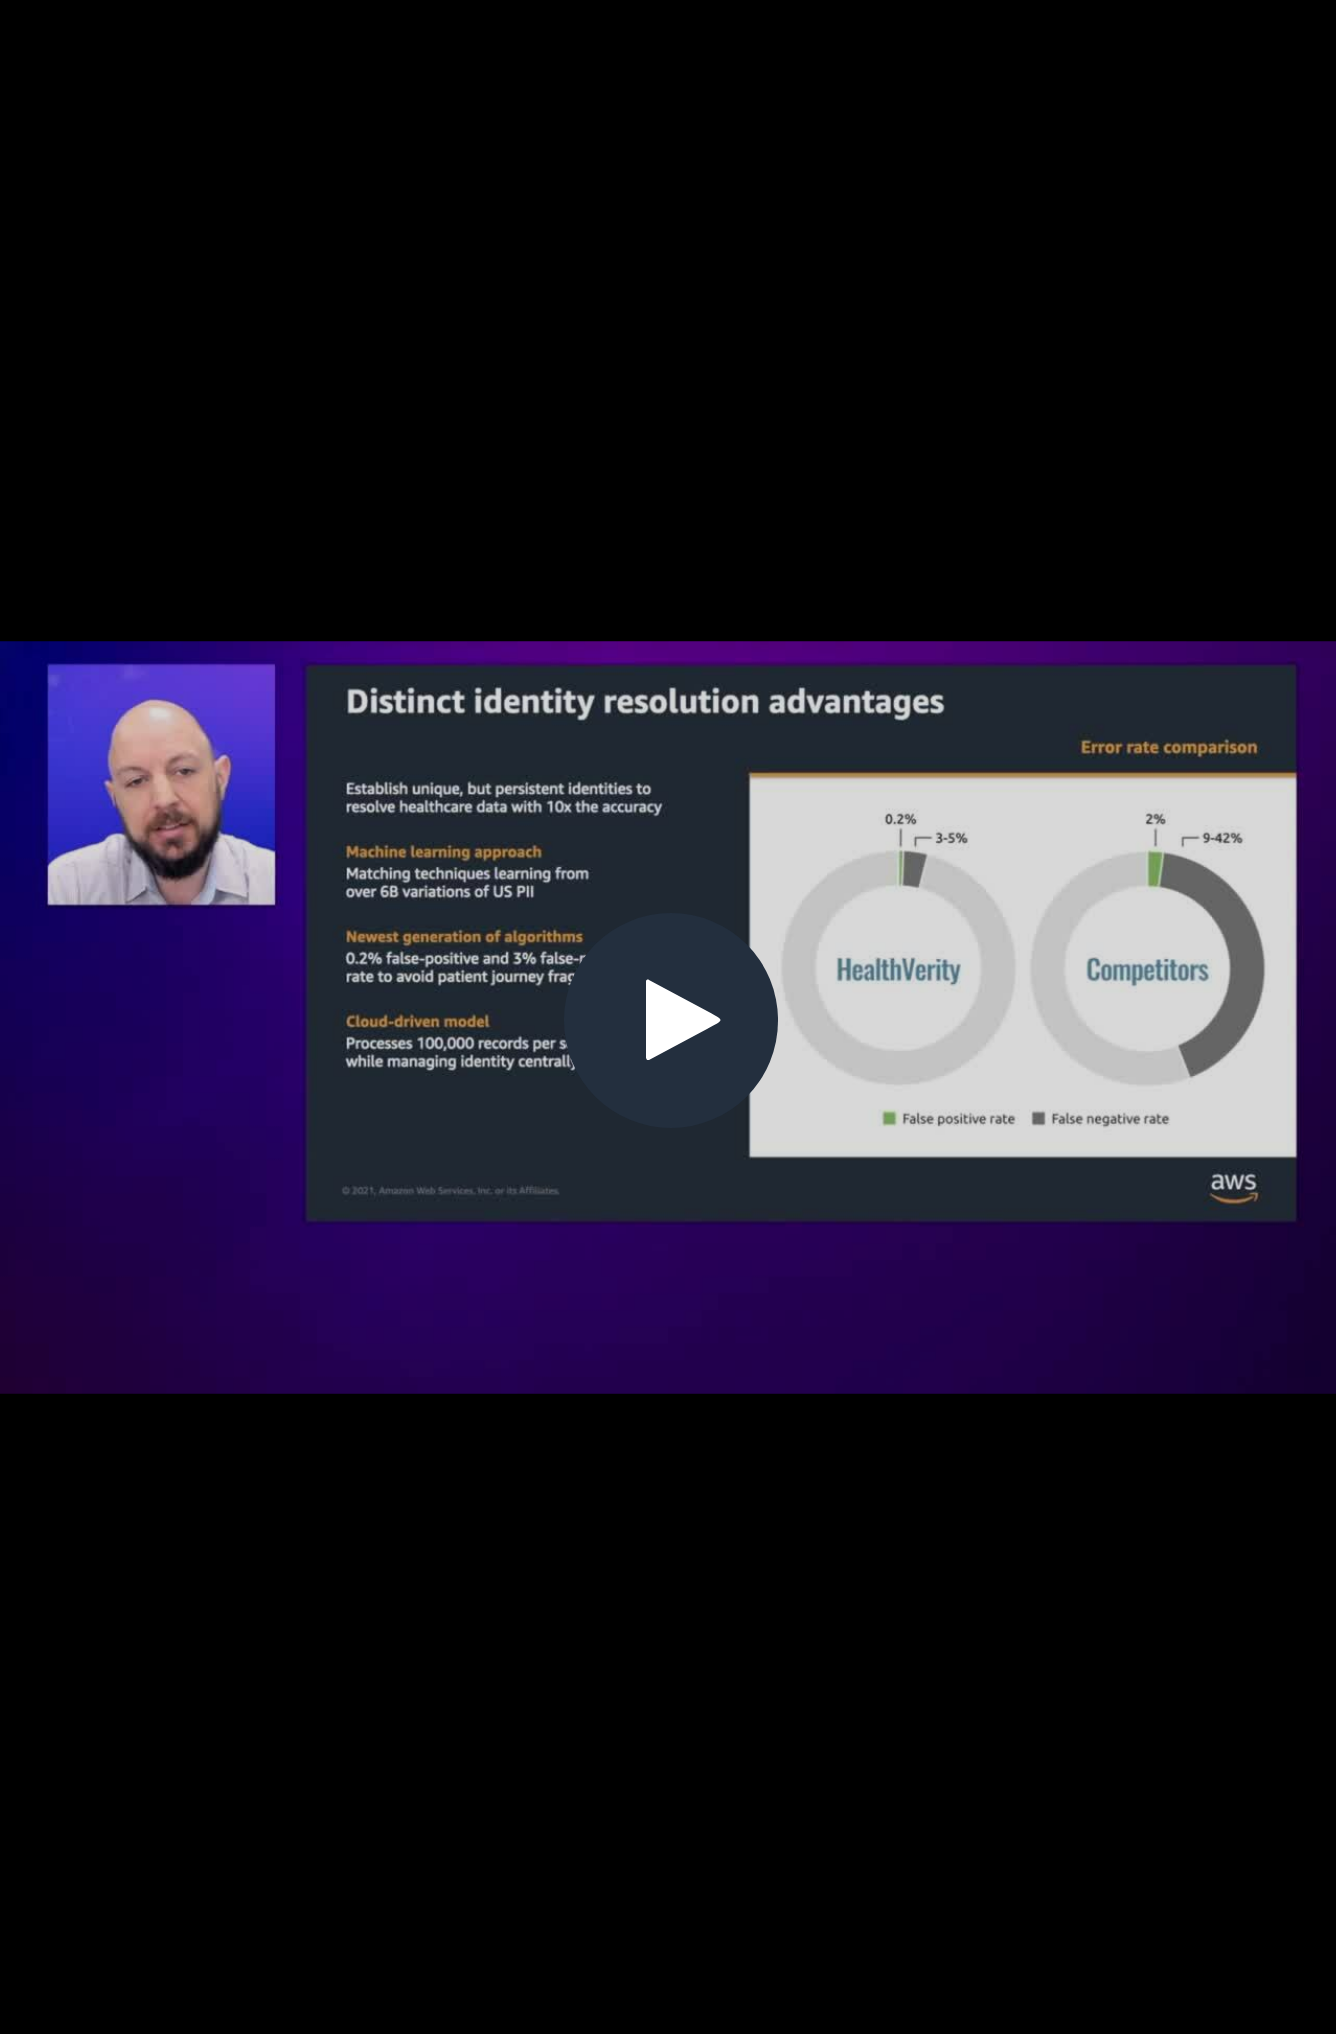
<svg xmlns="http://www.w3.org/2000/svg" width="1336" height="2034">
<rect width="100%" height="100%" fill="#000"/>
<image href="1.png" x="0" y="641" width="1336" height="753"/>
<rect fill="#232f3e" x="564" y="913" width="214" height="215" rx="107"/>
<path fill="#fff" d="M649 980l58 31c18 10 18 8 0 18l-58 31h-2l-1-2v-77c0-1 2-2 3-1z"/>
</svg>
